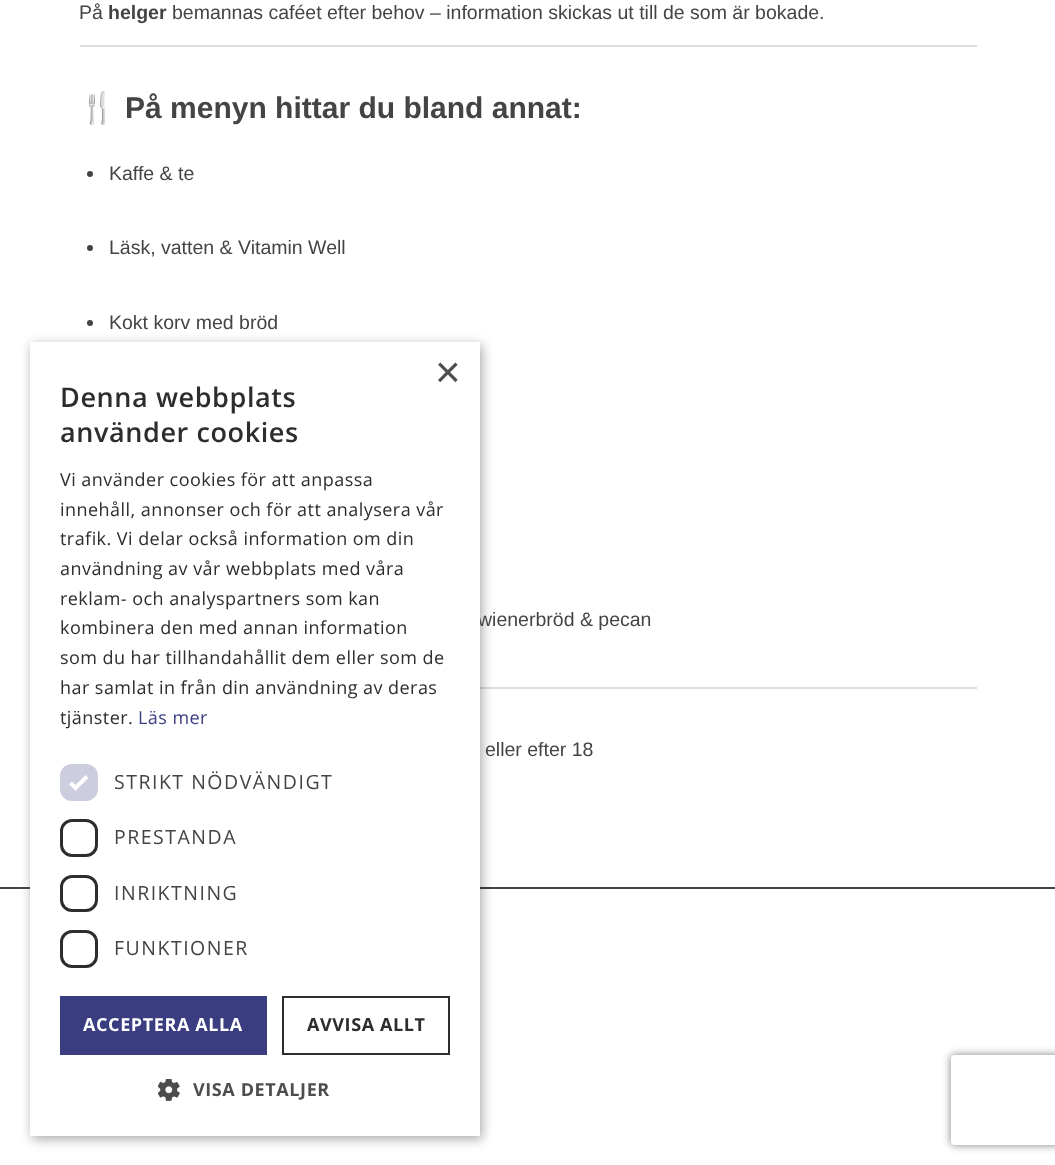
<svg xmlns="http://www.w3.org/2000/svg" width="1055" height="1165">
<style>
.a{font:19.5px Liberation Sans;fill:#444}
.b{font:bold 19.5px Liberation Sans;fill:#444}
.c{font:bold 30px Noto Color Emoji;fill:#444}
.d{font:bold 30px Liberation Sans;fill:#444}
.e{font:44px Liberation Sans;fill:#4d4d4d}
.f{font:600 27px Open Sans;letter-spacing:0.6px;fill:#2d2d2d}
.g{font:18px Open Sans;letter-spacing:0.45px;fill:#2d2d2d}
.h{font:18px Open Sans;letter-spacing:0.45px;fill:#3a3e80}
.i{font:19.5px Open Sans;letter-spacing:1.5px;fill:#444}
.j{font:bold 18px Open Sans;letter-spacing:0.6px;fill:#fff}
.k{font:bold 18px Open Sans;letter-spacing:0.6px;fill:#2d2d2d}
.l{font:bold 18px Open Sans;letter-spacing:0.6px;fill:#4d4d4d}
</style>
<defs>
<clipPath id="clip1"><path d="M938 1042h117v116h-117zm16 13h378c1.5 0 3 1.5 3 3v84c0 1.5-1.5 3-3 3h-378c-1.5 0-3-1.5-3-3v-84c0-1.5 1.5-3 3-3z" clip-rule="evenodd"/></clipPath>
</defs>
<rect width="100%" height="100%" fill="#fff"/>
<path fill="#ddd" d="M80 45h897v2H80z"/>
<circle fill="#444" cx="90" cy="174" r="3"/>
<circle fill="#444" cx="90" cy="248" r="3"/>
<circle fill="#444" cx="90" cy="323" r="3"/>
<path fill="#ddd" d="M480 687h497v2H480z"/>
<path fill="#444" d="M0 887h1055v2H0z"/>
<path fill="#00000059" filter="blur(6px)" d="M32 345h450v794H32z"/>
<g clip-path="url(#clip1)">
<rect fill="#808080" filter="blur(4px)" x="951" y="1055" width="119" height="90" rx="3"/>
</g>
<text class="a" x="79" y="19">På</text>
<text class="b" x="108" y="19">helger</text>
<text class="a" x="172" y="19">bemannas caféet efter behov – information skickas ut till de som är bokade.</text>
<text class="c" x="79" y="118">🍴</text>
<text class="d" x="125" y="118">På menyn hittar du bland annat:</text>
<text class="a" x="109" y="180">Kaffe &amp; te</text>
<text class="a" x="109" y="254">Läsk, vatten &amp; Vitamin Well</text>
<text class="a" x="109" y="329">Kokt korv med bröd</text>
<text class="a" x="478" y="626">wienerbröd &amp; pecan</text>
<text class="a" x="485" y="756">eller efter 18</text>
<path fill="#fff" d="M30 342h450v794H30z"/>
<text class="e" x="435" y="387">×</text>
<text class="f" x="60" y="407">Denna webbplats</text>
<text class="f" x="60" y="442">använder cookies</text>
<text class="g" x="60" y="486">Vi använder cookies för att anpassa</text>
<text class="g" x="60" y="516">innehåll, annonser och för att analysera vår</text>
<text class="g" x="60" y="545">trafik. Vi delar också information om din</text>
<text class="g" x="60" y="575">användning av vår webbplats med våra</text>
<text class="g" x="60" y="605">reklam- och analyspartners som kan</text>
<text class="g" x="60" y="634">kombinera den med annan information</text>
<text class="g" x="60" y="664">som du har tillhandahållit dem eller som de</text>
<text class="g" x="60" y="694">har samlat in från din användning av deras</text>
<text class="g" x="60" y="724">tjänster.</text>
<text class="h" x="138" y="724">Läs mer</text>
<rect fill="#cccdde" x="60" y="764" width="38" height="37" rx="12"/>
<path fill="none" stroke="#fff" stroke-width="3.9" d="M70.5 783l5 5l11.5-11.5"/>
<text class="i" x="114" y="789">STRIKT NÖDVÄNDIGT</text>
<rect fill="none" stroke="#2d2d2d" stroke-width="3" x="61.5" y="820.5" width="35" height="35" rx="10.5"/>
<text class="i" x="114" y="844">PRESTANDA</text>
<rect fill="none" stroke="#2d2d2d" stroke-width="3" x="61.5" y="876.5" width="35" height="34" rx="10.5"/>
<text class="i" x="114" y="900">INRIKTNING</text>
<rect fill="none" stroke="#2d2d2d" stroke-width="3" x="61.5" y="931.5" width="35" height="35" rx="10.5"/>
<text class="i" x="114" y="955">FUNKTIONER</text>
<path fill="#3a3e80" d="M60 996h207v59H60z"/>
<text class="j" x="83" y="1031">ACCEPTERA ALLA</text>
<path fill="none" stroke="#2d2d2d" stroke-width="2" d="M283 997h166v57H283z"/>
<text class="k" x="307" y="1031">AVVISA ALLT</text>
<image href="1.png" x="158" y="1079" width="22" height="22"/>
<text class="l" x="193" y="1096">VISA DETALJER</text>
</svg>
